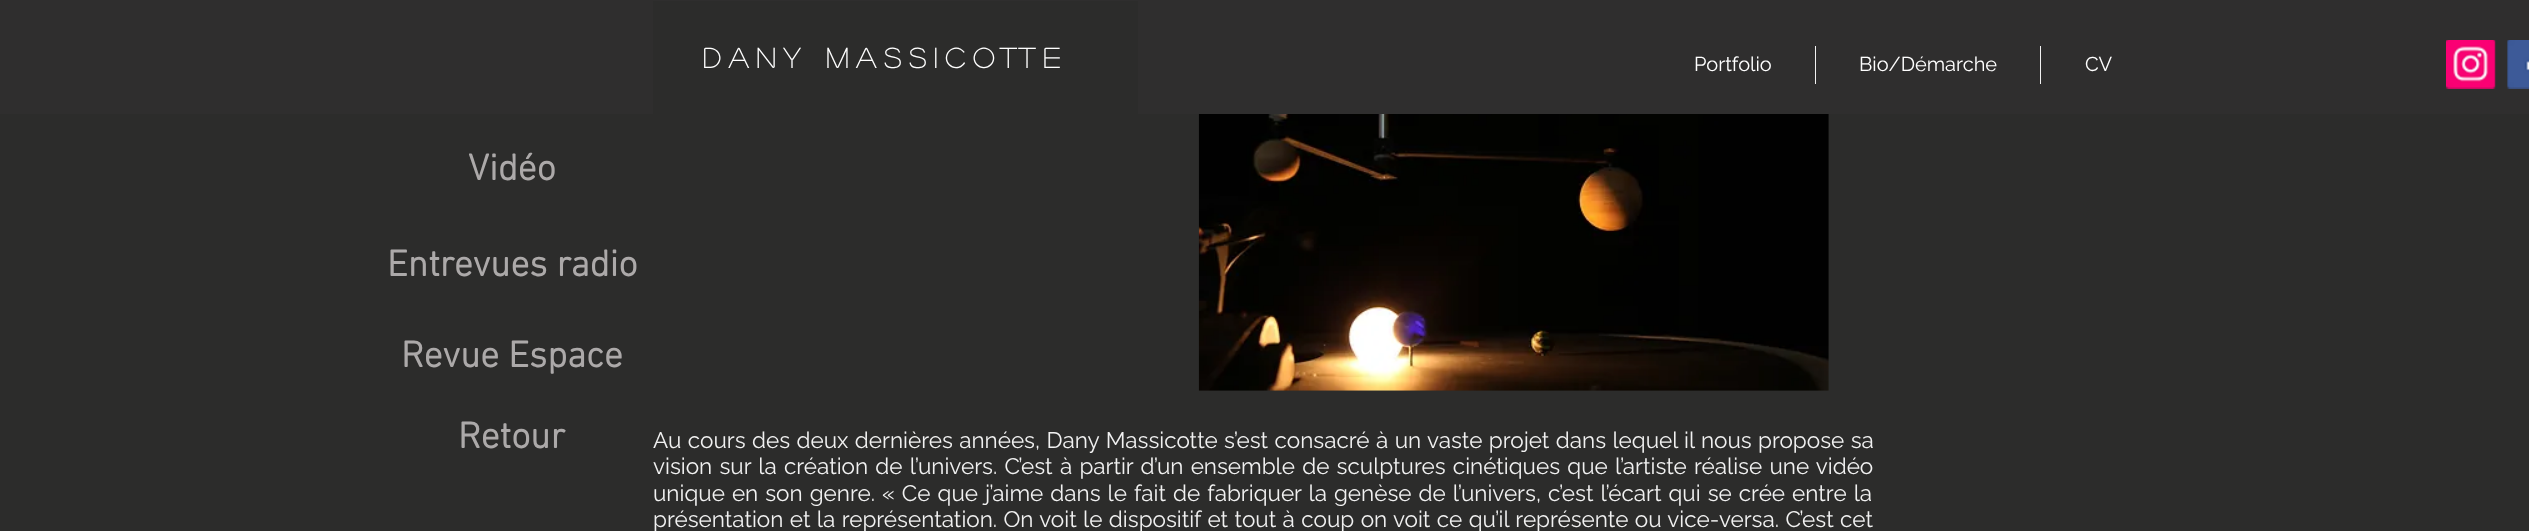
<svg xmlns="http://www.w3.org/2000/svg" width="2529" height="531">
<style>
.a{font:bold 27.5px 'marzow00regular';letter-spacing:8.25px;fill:#fff}
.b{font:20px Raleway;fill:#fff}
.c{font:bold 37.5px 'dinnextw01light';fill:#aca9a9}
.d{font:22.5px Raleway;fill:#f1f1f1}
</style>
<rect width="100%" height="100%" fill="#2c2c2b"/>
<path fill="#2f2e2e" d="M0 0h2529v114H0z"/>
<path fill="#2c2c2b" d="M653 1h485v113H653z"/>
<image href="1.png" x="2446" y="40" width="50" height="49"/>
<image href="2.png" x="2507" y="40" width="22" height="49"/>
<path fill="#f1f1f1" d="M1815 46h1v38H1815z"/>
<path fill="#f1f1f1" d="M2040 46h1v38H2040z"/>
<image href="3.png" x="1198" y="114" width="631" height="277"/>
<text class="a" x="703" y="68">Dany Massicotte</text>
<text class="b" x="1694" y="71">Portfolio</text>
<text class="b" x="1859" y="71">Bio/Démarche</text>
<text class="b" x="2085" y="71">CV</text>
<text class="c" x="468" y="180">Vidéo</text>
<text class="c" x="387" y="276">Entrevues radio</text>
<text class="c" x="401" y="367">Revue Espace</text>
<text class="c" x="458" y="448">Retour</text>
<text class="d" x="653" y="448" word-spacing="0.7">Au cours des deux dernières années, Dany Massicotte s’est consacré à un vaste projet dans lequel il nous propose sa</text>
<text class="d" x="653" y="474" word-spacing="1.5">vision sur la création de l’univers. C’est à partir d’un ensemble de sculptures cinétiques que l’artiste réalise une vidéo</text>
<text class="d" x="653" y="501" word-spacing="1.3">unique en son genre. « Ce que j’aime dans le fait de fabriquer la genèse de l’univers, c’est l’écart qui se crée entre la</text>
<text class="d" x="653" y="527" word-spacing="0.7">présentation et la représentation. On voit le dispositif et tout à coup on voit ce qu’il représente ou vice-versa. C’est cet</text>
</svg>
